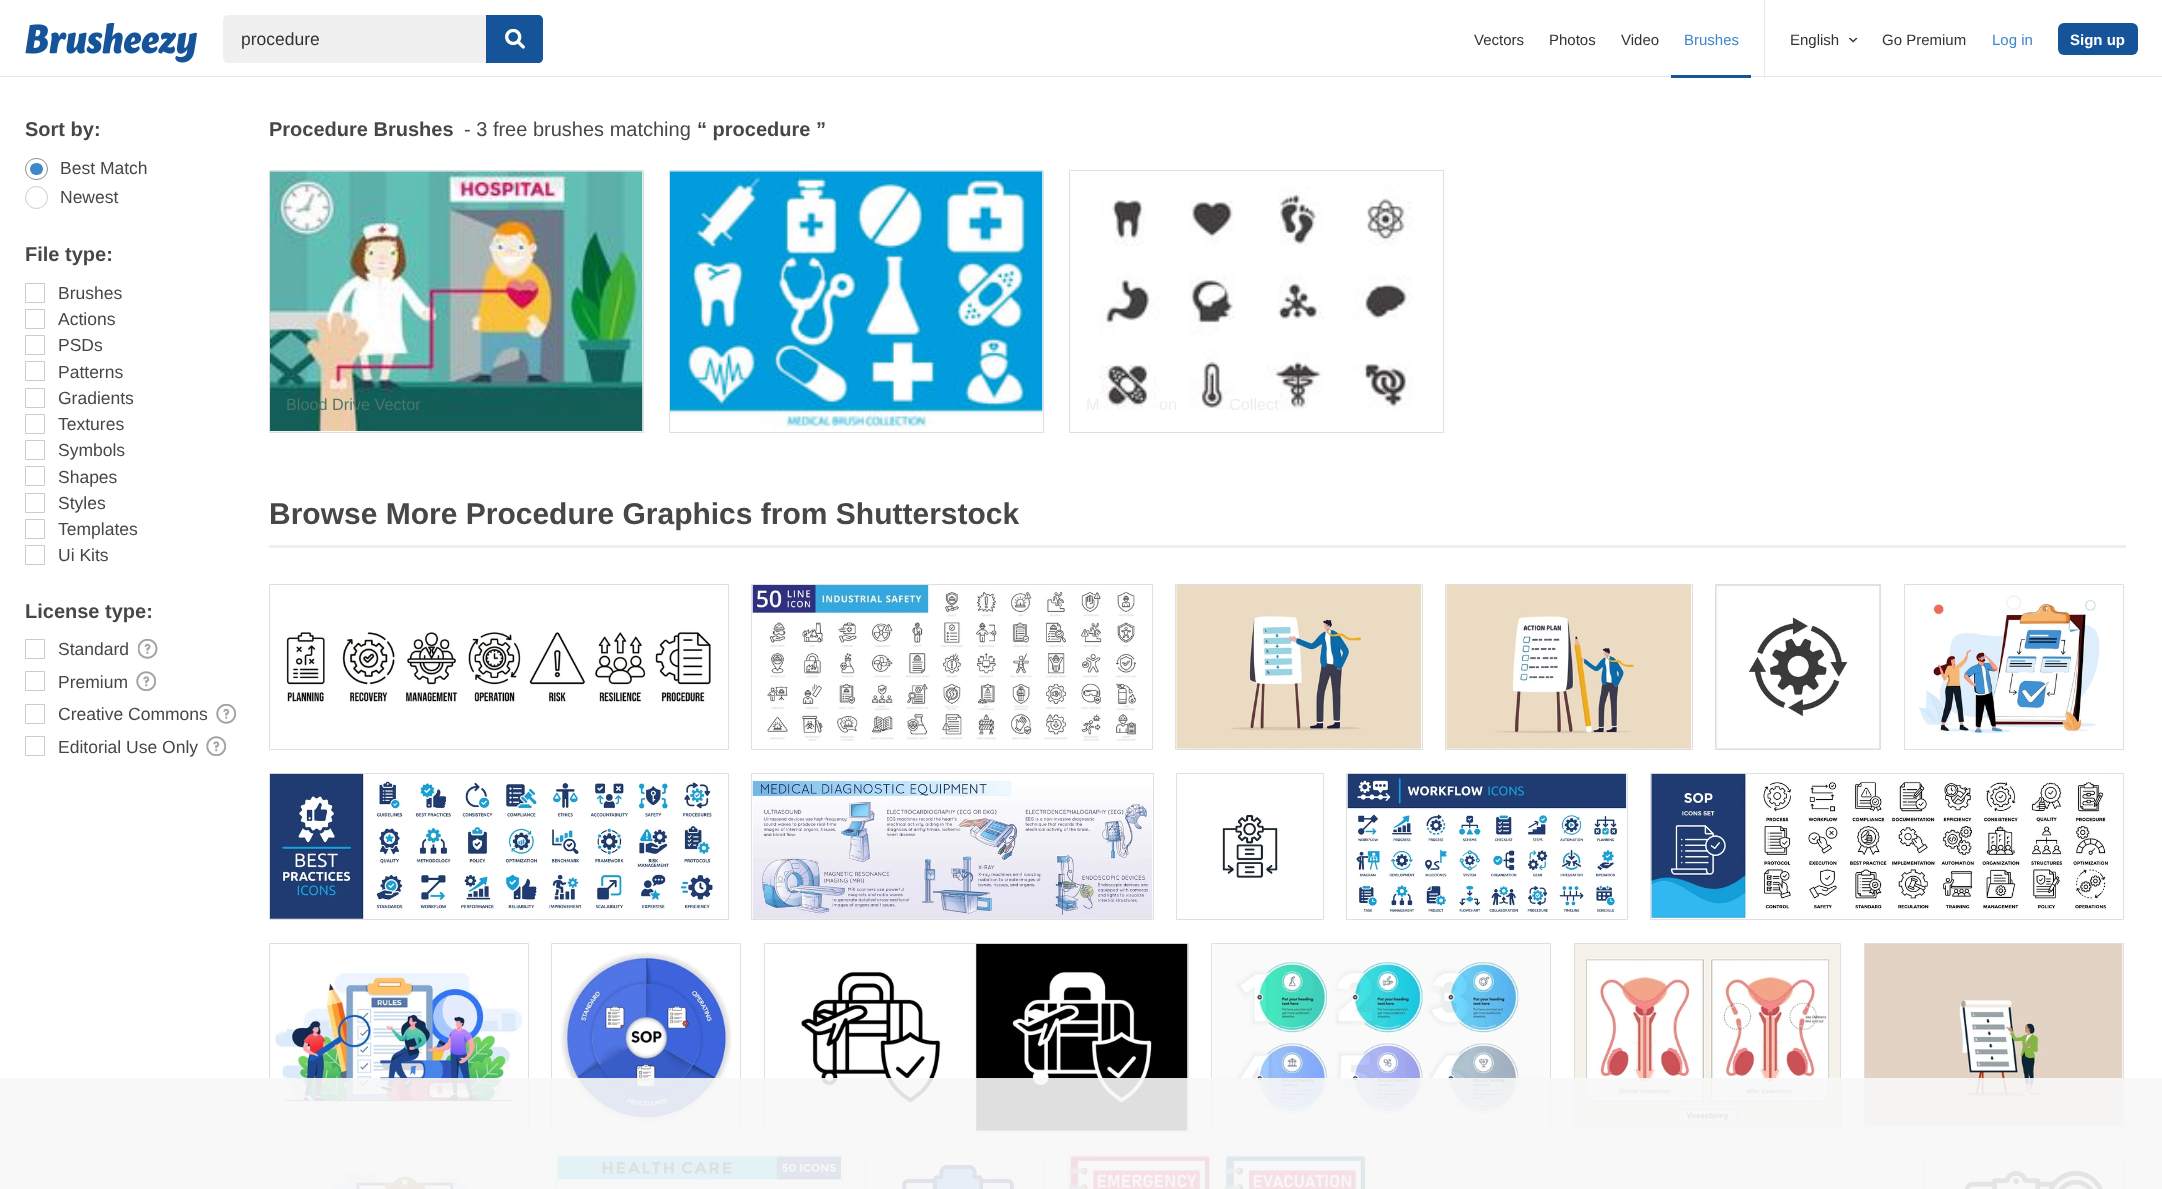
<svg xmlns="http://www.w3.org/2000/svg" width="2162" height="1189">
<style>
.a{font:17.5px Liberation Sans;fill:#333}
.b{font:15px Liberation Sans;fill:#333}
.c{font:15px Liberation Sans;fill:#3f86ca}
.d{font:bold 15px Liberation Sans;fill:#fff}
.e{font:bold 20px Liberation Sans;fill:#474747}
.f{font:17.5px Liberation Sans;fill:#474747}
.g{font:20px Liberation Sans;fill:#474747}
.h{font:16.25px Liberation Sans;fill:#49786c}
.i{font:16.25px Liberation Sans;fill:#eeedee}
.j{font:bold 30px Liberation Sans;fill:#474747}
</style>
<rect width="100%" height="100%" fill="#fff"/>
<path fill="#e8e8e8" d="M0 76h2162v1H0z"/>
<image href="1.png" x="25" y="23" width="172" height="40"/>
<rect fill="#f0f0f0" x="223" y="15" width="320" height="48" rx="5"/>
<path fill="#155499" d="M486 15h52c3 0 5 2 5 5v38c0 3-2 5-5 5h-52z"/>
<image href="2.png" x="505" y="29" width="20" height="20"/>
<path fill="#155499" d="M1671 75h80v3H1671z"/>
<path fill="#e8e8e8" d="M1764 0h1v78H1764z"/>
<image href="3.png" x="1849" y="38" width="9" height="5"/>
<rect fill="#155499" x="2058" y="23" width="80" height="32" rx="6"/>
<rect fill="none" stroke="#909090" x="25.5" y="158.5" width="22" height="21" rx="10.5"/>
<rect fill="#3f86ca" x="30" y="163" width="13" height="12" rx="6"/>
<circle fill="none" stroke="#ccc" cx="36.5" cy="197.5" r="11"/>
<path fill="none" stroke="#ccc" d="M25.5 283.5h19v19H25.5z"/>
<path fill="none" stroke="#ccc" d="M25.5 309.5h19v19H25.5z"/>
<path fill="none" stroke="#ccc" d="M25.5 335.5h19v19H25.5z"/>
<path fill="none" stroke="#ccc" d="M25.5 361.5h19v19H25.5z"/>
<path fill="none" stroke="#ccc" d="M25.5 388.5h19v19H25.5z"/>
<path fill="none" stroke="#ccc" d="M25.5 414.5h19v19H25.5z"/>
<path fill="none" stroke="#ccc" d="M25.5 440.5h19v19H25.5z"/>
<path fill="none" stroke="#ccc" d="M25.5 466.5h19v19H25.5z"/>
<path fill="none" stroke="#ccc" d="M25.5 493.5h19v19H25.5z"/>
<path fill="none" stroke="#ccc" d="M25.5 519.5h19v19H25.5z"/>
<path fill="none" stroke="#ccc" d="M25.5 545.5h19v19H25.5z"/>
<path fill="none" stroke="#ccc" d="M25.5 639.5h19v19H25.5z"/>
<image href="4.png" x="138" y="639" width="20" height="20"/>
<path fill="none" stroke="#ccc" d="M25.5 671.5h19v19H25.5z"/>
<image href="5.png" x="136" y="671" width="20" height="20"/>
<path fill="none" stroke="#ccc" d="M25.5 704.5h19v19H25.5z"/>
<image href="6.png" x="216" y="704" width="20" height="20"/>
<path fill="none" stroke="#ccc" d="M25.5 736.5h19v19H25.5z"/>
<image href="5.png" x="206" y="736" width="20" height="20"/>
<path fill="none" stroke="#dfdfdf" d="M269.5 170.5h374v262H269.5z"/>
<image href="7.png" x="270" y="171" width="373" height="261"/>
<path fill="none" stroke="#dfdfdf" d="M669.5 170.5h374v262H669.5z"/>
<image href="8.png" x="670" y="171" width="373" height="260"/>
<path fill="none" stroke="#dfdfdf" d="M1069.5 170.5h374v262H1069.5z"/>
<image href="9.png" x="1099" y="186" width="314" height="224"/>
<path fill="#eee" d="M269 545h1857v3H269z"/>
<path fill="none" stroke="#dfdfdf" d="M269.5 584.5h459v165H269.5z"/>
<image href="10.png" x="286" y="631" width="426" height="72"/>
<path fill="none" stroke="#dfdfdf" d="M751.5 584.5h401v165H751.5z"/>
<image href="11.png" x="752" y="585" width="385" height="156"/>
<path fill="none" stroke="#dfdfdf" d="M1175.5 584.5h247v165H1175.5z"/>
<image href="12.png" x="1176" y="585" width="246" height="164"/>
<path fill="none" stroke="#dfdfdf" d="M1445.5 584.5h247v165H1445.5z"/>
<image href="13.png" x="1446" y="585" width="246" height="164"/>
<path fill="none" stroke="#dfdfdf" d="M1715.5 584.5h165v165H1715.5z"/>
<image href="14.png" x="1716" y="585" width="164" height="164"/>
<path fill="none" stroke="#dfdfdf" d="M1904.5 584.5h219v165H1904.5z"/>
<image href="15.png" x="1919" y="595" width="181" height="139"/>
<path fill="none" stroke="#dfdfdf" d="M269.5 773.5h459v146H269.5z"/>
<image href="16.png" x="270" y="773" width="444" height="146"/>
<path fill="none" stroke="#dfdfdf" d="M751.5 773.5h402v146H751.5z"/>
<image href="17.png" x="752" y="780" width="401" height="139"/>
<path fill="none" stroke="#dfdfdf" d="M1176.5 773.5h147v146H1176.5z"/>
<image href="18.png" x="1222" y="814" width="56" height="65"/>
<path fill="none" stroke="#dfdfdf" d="M1346.5 773.5h281v146H1346.5z"/>
<image href="19.png" x="1347" y="773" width="280" height="139"/>
<path fill="none" stroke="#dfdfdf" d="M1650.5 773.5h473v146H1650.5z"/>
<image href="20.png" x="1651" y="773" width="457" height="145"/>
<path fill="none" stroke="#dfdfdf" d="M269.5 943.5h259v189H269.5z"/>
<image href="21.png" x="275" y="973" width="248" height="132"/>
<path fill="none" stroke="#dfdfdf" d="M551.5 943.5h189v189H551.5z"/>
<image href="22.png" x="560" y="952" width="172" height="171"/>
<path fill="none" stroke="#dfdfdf" d="M764.5 943.5h424v189H764.5z"/>
<image href="23.png" x="801" y="943" width="387" height="188"/>
<path fill="none" stroke="#dfdfdf" d="M1211.5 943.5h339v189H1211.5z"/>
<image href="24.png" x="1213" y="944" width="337" height="187"/>
<path fill="none" stroke="#dfdfdf" d="M1574.5 943.5h266v189H1574.5z"/>
<image href="25.png" x="1575" y="944" width="265" height="187"/>
<path fill="none" stroke="#dfdfdf" d="M1864.5 943.5h259v189H1864.5z"/>
<image href="26.png" x="1865" y="944" width="258" height="188"/>
<path fill="none" stroke="#dfdfdf" d="M269.5 1155.5h264v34H269.5z"/>
<image href="27.png" x="333" y="1170" width="134" height="19"/>
<path fill="none" stroke="#dfdfdf" d="M556.5 1155.5h286v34H556.5z"/>
<image href="28.png" x="557" y="1156" width="285" height="33"/>
<path fill="none" stroke="#dfdfdf" d="M865.5 1155.5h179v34H865.5z"/>
<image href="29.png" x="899" y="1164" width="116" height="25"/>
<path fill="none" stroke="#dfdfdf" d="M1068.5 1155.5h297v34H1068.5z"/>
<image href="30.png" x="1068" y="1156" width="297" height="33"/>
<path fill="none" stroke="#dfdfdf" d="M1389.5 1155.5h534v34H1389.5z"/>
<path fill="none" stroke="#dfdfdf" d="M1946.5 1155.5h177v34H1946.5z"/>
<image href="31.png" x="1947" y="1156" width="176" height="33"/>
<path fill="#f7f7f7e6" d="M0 1078h2162v111H0z"/>
<text class="a" x="241" y="45">procedure</text>
<text class="b" x="1474" y="45">Vectors</text>
<text class="b" x="1549" y="45">Photos</text>
<text class="b" x="1621" y="45">Video</text>
<text class="c" x="1684" y="45">Brushes</text>
<text class="b" x="1790" y="45">English</text>
<text class="b" x="1882" y="45">Go Premium</text>
<text class="c" x="1992" y="45">Log in</text>
<text class="d" x="2070" y="45">Sign up</text>
<text class="e" x="25" y="136">Sort by:</text>
<text class="f" x="60" y="174">Best Match</text>
<text class="f" x="60" y="203">Newest</text>
<text class="e" x="25" y="261">File type:</text>
<text class="f" x="58" y="299">Brushes</text>
<text class="f" x="58" y="325">Actions</text>
<text class="f" x="58" y="351">PSDs</text>
<text class="f" x="58" y="378">Patterns</text>
<text class="f" x="58" y="404">Gradients</text>
<text class="f" x="58" y="430">Textures</text>
<text class="f" x="58" y="456">Symbols</text>
<text class="f" x="58" y="483">Shapes</text>
<text class="f" x="58" y="509">Styles</text>
<text class="f" x="58" y="535">Templates</text>
<text class="f" x="58" y="561">Ui Kits</text>
<text class="e" x="25" y="618">License type:</text>
<text class="f" x="58" y="655">Standard</text>
<text class="f" x="58" y="688">Premium</text>
<text class="f" x="58" y="720">Creative Commons</text>
<text class="f" x="58" y="753">Editorial Use Only</text>
<text class="e" x="269" y="136">Procedure Brushes</text>
<text class="g" x="464" y="136">- 3 free brushes matching</text>
<text class="e" x="697" y="136">“ procedure ”</text>
<text class="h" x="286" y="410">Blood Drive Vector</text>
<text class="i" x="1086" y="410">M</text>
<text class="i" x="1159" y="410">on</text>
<text class="i" x="1229" y="410">Collect</text>
<text class="j" x="269" y="524">Browse More Procedure Graphics from Shutterstock</text>
</svg>
